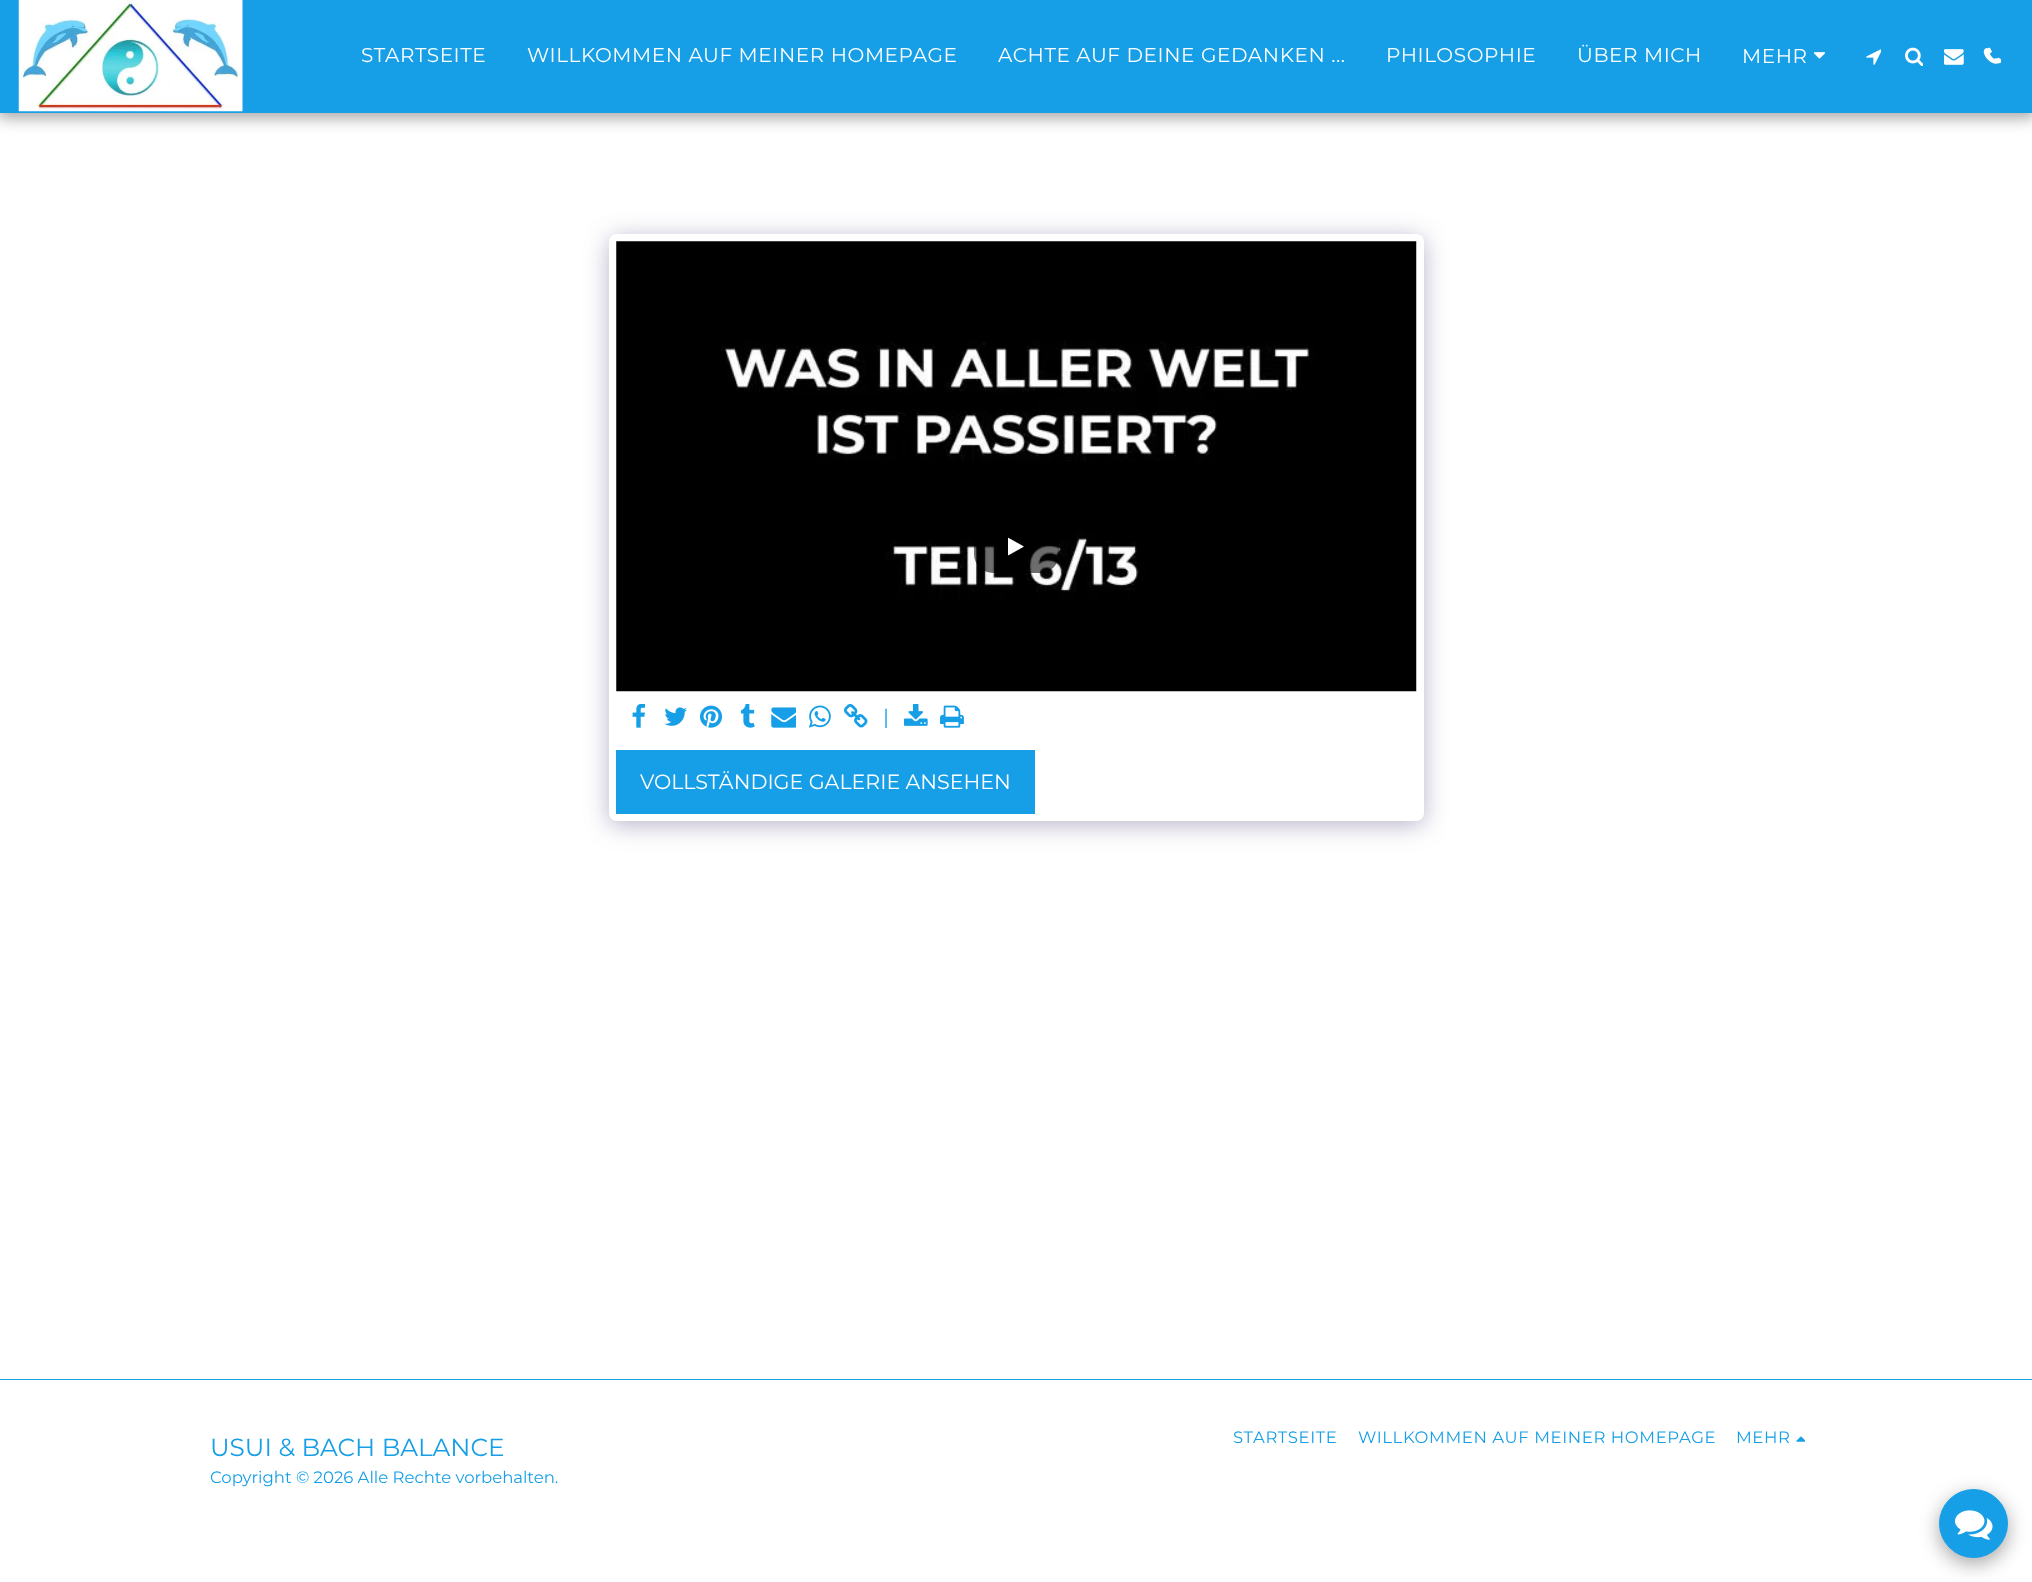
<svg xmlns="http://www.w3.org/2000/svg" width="2032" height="1582">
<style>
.a{font:20px Montserrat;letter-spacing:0.6px;fill:#fff}
.b{font:20.6px Montserrat;fill:#169fe6}
.c{font:20.6px Montserrat;fill:#fff}
.d{font:24.75px Montserrat;fill:#169fe6}
.e{font:16.5px Montserrat;fill:#169fe6}
.f{font:16.5px Montserrat;letter-spacing:0.6px;fill:#169fe6}
</style>
<rect width="100%" height="100%" fill="#fff"/>
<path fill="#00000059" filter="blur(7.5px)" d="M-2 0h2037v118H-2z"/>
<path fill="#169fe6" d="M0 0h2032v113H0z"/>
<image href="1.png" x="18" y="0" width="225" height="112"/>
<image href="2.png" x="1814" y="52" width="11" height="7"/>
<image href="3.png" x="1866" y="49" width="15" height="16"/>
<image href="4.png" x="1905" y="47" width="18" height="19"/>
<image href="5.png" x="1944" y="49" width="20" height="16"/>
<image href="6.png" x="1987" y="47" width="14" height="17"/>
<image href="7.png" x="1983" y="48" width="15" height="16"/>
<rect fill="#4d3f7a66" filter="blur(12.5px)" x="609" y="238" width="815" height="587" rx="8"/>
<rect fill="#fff" x="609" y="234" width="815" height="587" rx="8"/>
<image href="8.png" x="616" y="241" width="801" height="451"/>
<rect fill="#00000091" x="974" y="521" width="85" height="52" rx="19"/>
<image href="9.png" x="1008" y="537" width="16" height="19"/>
<image href="10.png" x="632" y="704" width="14" height="24"/>
<image href="11.png" x="664" y="707" width="23" height="19"/>
<image href="12.png" x="700" y="705" width="23" height="23"/>
<image href="13.png" x="740" y="704" width="15" height="24"/>
<image href="14.png" x="771" y="707" width="25" height="21"/>
<image href="15.png" x="809" y="705" width="22" height="23"/>
<image href="16.png" x="844" y="704" width="24" height="24"/>
<image href="17.png" x="904" y="704" width="24" height="22"/>
<image href="18.png" x="940" y="705" width="24" height="23"/>
<path fill="#169fe6" d="M616 750h419v64H616z"/>
<path fill="#169fe6" d="M0 1379h2032v1H0z"/>
<image href="19.png" x="1796" y="1436" width="9" height="6"/>
<rect fill="#00000059" filter="blur(9.5px)" x="1939" y="1495" width="69" height="69" rx="34.5"/>
<circle fill="#169fe6" stroke="#169fe6" cx="1973.5" cy="1523.5" r="34"/>
<image href="20.png" x="1955" y="1510" width="38" height="30"/>
<text class="a" x="361" y="62">STARTSEITE</text>
<text class="a" x="527" y="62">WILLKOMMEN AUF MEINER HOMEPAGE</text>
<text class="a" x="998" y="62">ACHTE AUF DEINE GEDANKEN ...</text>
<text class="a" x="1386" y="62">PHILOSOPHIE</text>
<text class="a" x="1577" y="62">ÜBER MICH</text>
<text class="a" x="1742" y="63">MEHR</text>
<text class="b" x="883" y="724">|</text>
<text class="c" x="640" y="789">VOLLSTÄNDIGE GALERIE ANSEHEN</text>
<text class="d" x="210" y="1456">USUI &amp; BACH BALANCE</text>
<text class="e" x="210" y="1483">Copyright © 2026 Alle Rechte vorbehalten.</text>
<text class="f" x="1233" y="1443">STARTSEITE</text>
<text class="f" x="1358" y="1443">WILLKOMMEN AUF MEINER HOMEPAGE</text>
<text class="f" x="1736" y="1443">MEHR</text>
</svg>
